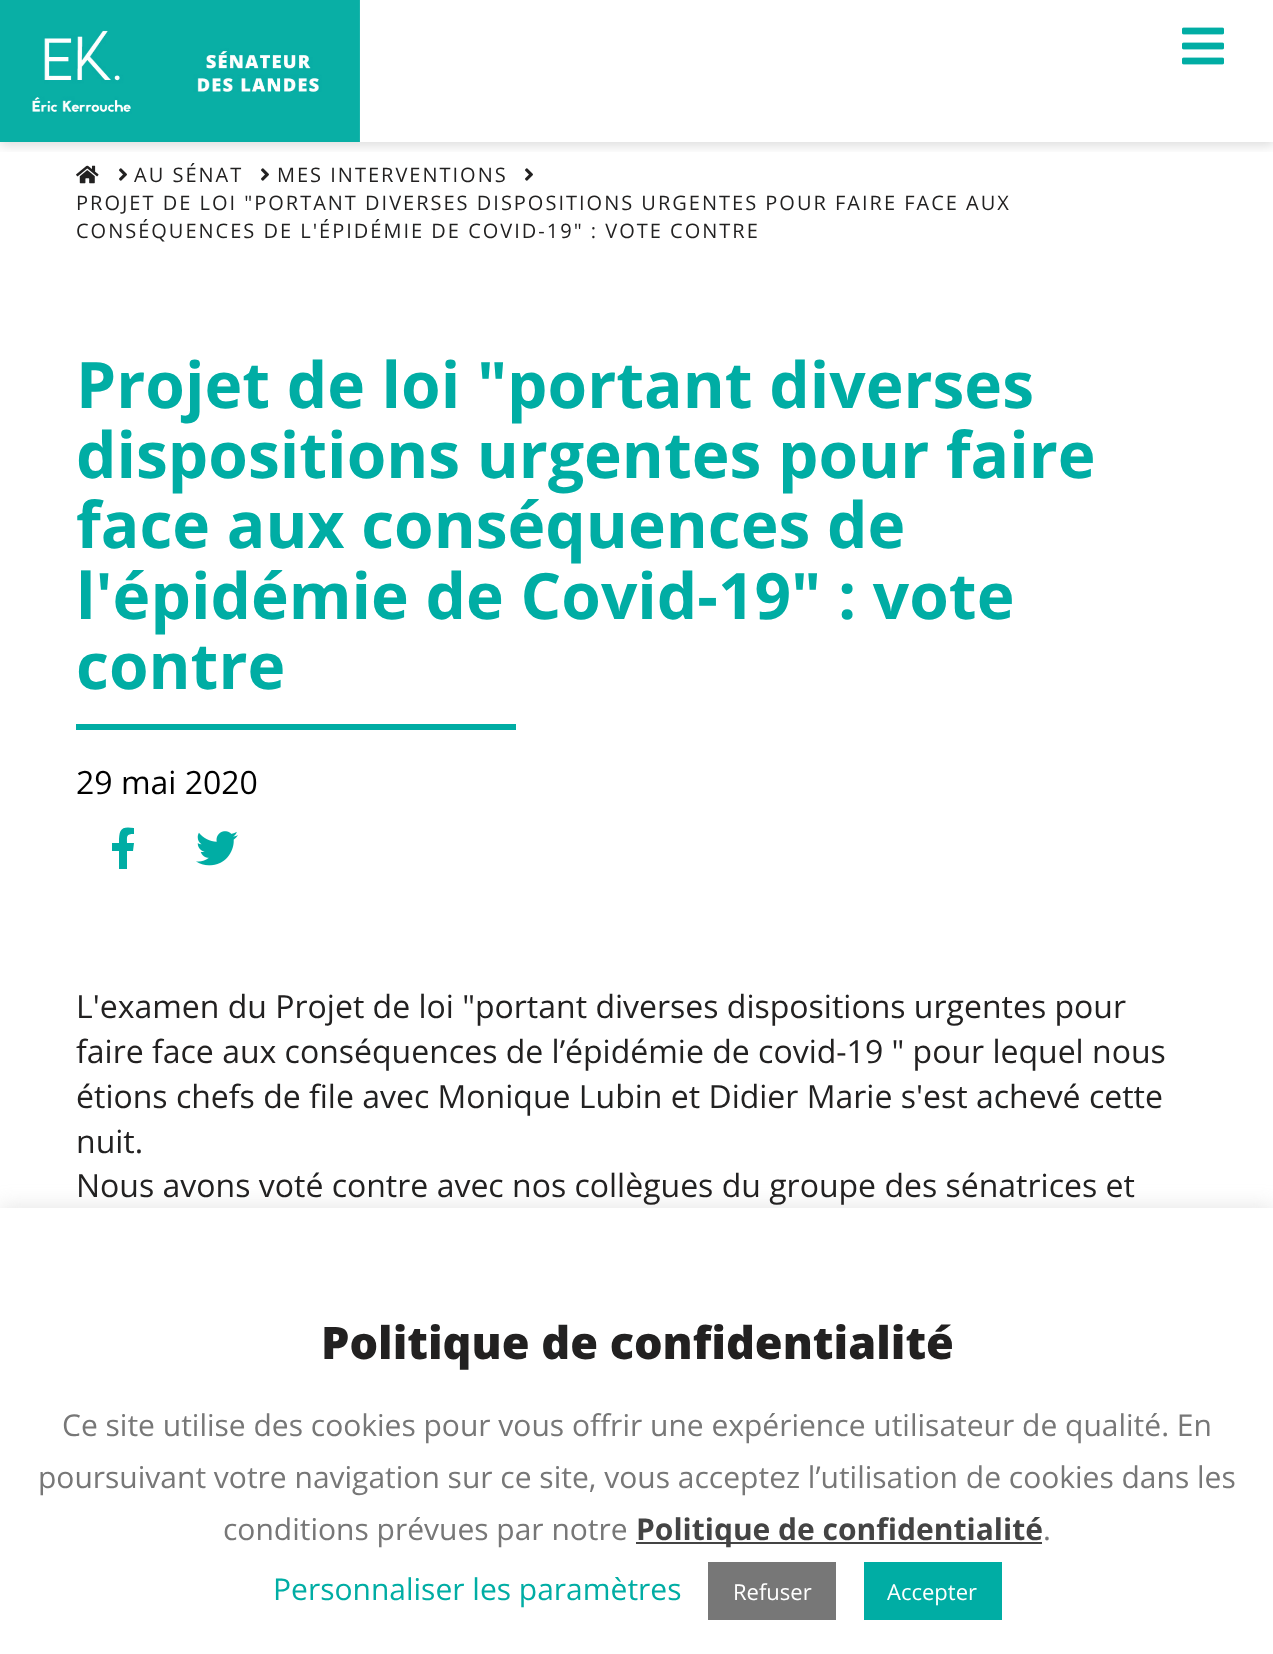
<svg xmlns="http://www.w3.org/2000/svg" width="1273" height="1654">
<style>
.a{font:20px Open Sans;letter-spacing:2px;fill:#222121}
.b{font:bold 64px Open Sans;fill:#00ada4}
.c{font:32px Open Sans;fill:#000}
.d{font:32px Open Sans;fill:#222121}
.e{font:800 45px Open Sans;fill:#222121}
.f{font:30px Open Sans;fill:#777}
.g{font:bold 30px Open Sans;fill:#444}
.h{font:30px Open Sans;fill:#00ada4}
.i{font:22px Open Sans;fill:#fff}
</style>
<defs>
<clipPath id="clip1"><path d="M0 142h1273v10H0z"/></clipPath>
</defs>
<rect width="100%" height="100%" fill="#fff"/>
<g clip-path="url(#clip1)">
<path fill="#00000021" filter="blur(5.5px)" d="M0 4h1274v142H0z"/>
</g>
<image href="1.png" x="0" y="0" width="360" height="142"/>
<image href="2.png" x="1182" y="27" width="42" height="38"/>
<image href="3.png" x="76" y="165" width="23" height="19"/>
<image href="4.png" x="119" y="168" width="8" height="13"/>
<image href="4.png" x="261" y="168" width="8" height="13"/>
<image href="4.png" x="525" y="168" width="8" height="13"/>
<path fill="#00ada4" d="M76 724h440v6H76z"/>
<path fill="#00ada4" d="M133 851h-6v18h-8v-18h-7v-8h7c0-14 2-17 15-15v6c-8 0-7 2-7 9h7z"/>
<image href="5.png" x="196" y="831" width="42" height="35"/>
<path fill="#acabab4d" filter="blur(10px)" d="M0 1206h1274v446H0z"/>
<path fill="#fff" d="M0 1208h1273v446H0z"/>
<path fill="#444" d="M636 1542h406v2H636z"/>
<path fill="#777" d="M708 1562h128v58H708z"/>
<path fill="#00ada4" d="M864 1562h138v58H864z"/>
<text class="a" x="134" y="182">AU SÉNAT</text>
<text class="a" x="277" y="182">MES INTERVENTIONS</text>
<text class="a" x="76" y="210">PROJET DE LOI "PORTANT DIVERSES DISPOSITIONS URGENTES POUR FAIRE FACE AUX</text>
<text class="a" x="76" y="238">CONSÉQUENCES DE L'ÉPIDÉMIE DE COVID-19" : VOTE CONTRE</text>
<text class="b" x="76" y="408">Projet de loi "portant diverses</text>
<text class="b" x="76" y="478">dispositions urgentes pour faire</text>
<text class="b" x="76" y="548">face aux conséquences de</text>
<text class="b" x="76" y="619">l'épidémie de Covid-19" : vote</text>
<text class="b" x="76" y="689">contre</text>
<text class="c" x="76" y="794">29 mai 2020</text>
<text class="d" x="76" y="1018">L'examen du Projet de loi "portant diverses dispositions urgentes pour</text>
<text class="d" x="76" y="1063">faire face aux conséquences de l’épidémie de covid-19 " pour lequel nous</text>
<text class="d" x="76" y="1108">étions chefs de file avec Monique Lubin et Didier Marie s'est achevé cette</text>
<text class="d" x="76" y="1153">nuit.</text>
<text class="d" x="76" y="1197">Nous avons voté contre avec nos collègues du groupe des sénatrices et</text>
<text class="e" x="321" y="1359">Politique de confidentialité</text>
<text class="f" x="62" y="1436">Ce site utilise des cookies pour vous offrir une expérience utilisateur de qualité. En</text>
<text class="f" x="38" y="1488">poursuivant votre navigation sur ce site, vous acceptez l’utilisation de cookies dans les</text>
<text class="f" x="223" y="1540">conditions prévues par notre</text>
<text class="g" x="636" y="1540">Politique de confidentialité</text>
<text class="f" x="1043" y="1540">.</text>
<text class="h" x="273" y="1600">Personnaliser les paramètres</text>
<text class="i" x="733" y="1600">Refuser</text>
<text class="i" x="887" y="1600">Accepter</text>
</svg>
